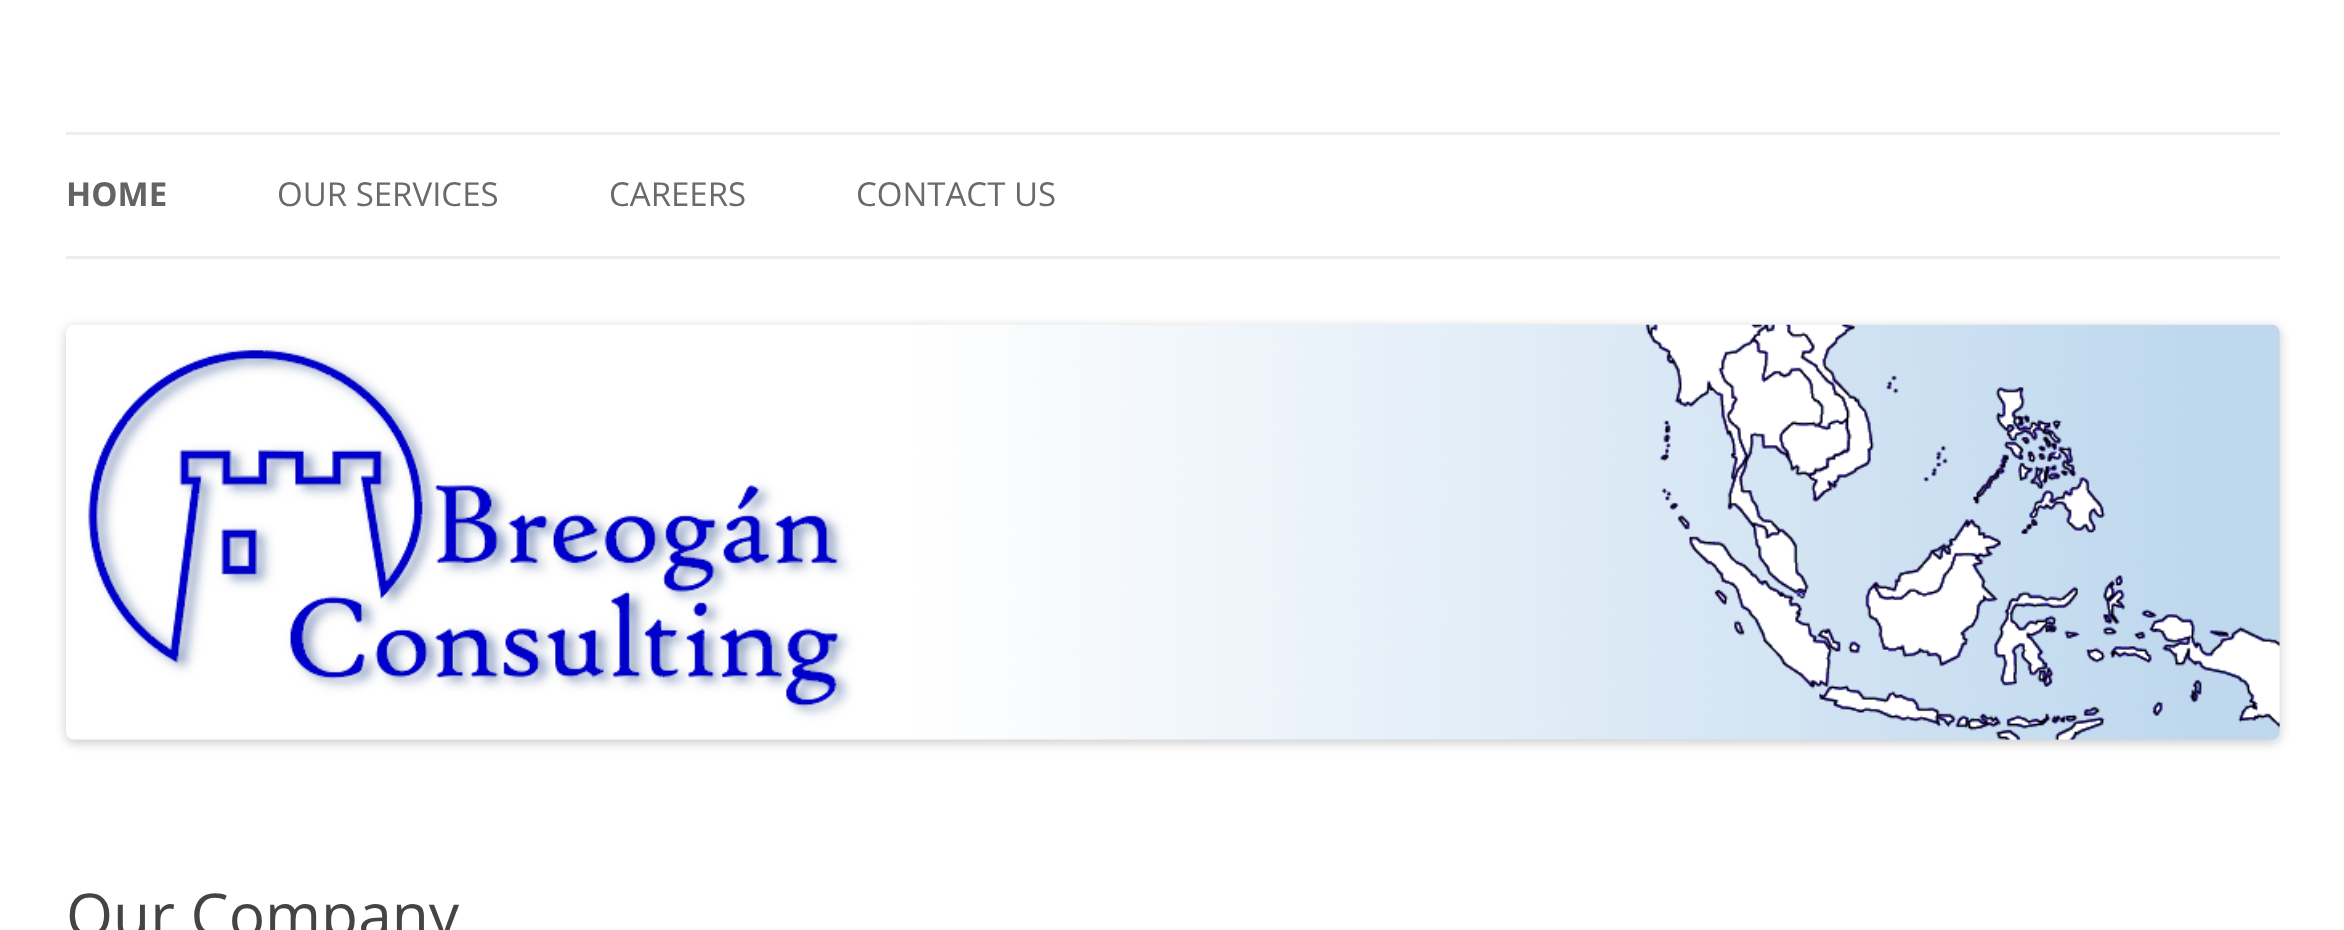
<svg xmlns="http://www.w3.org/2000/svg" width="2344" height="930">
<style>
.a{font:bold 33px Open Sans;fill:#636363}
.b{font:33px Open Sans;fill:#6a6a6a}
.c{font:60.5px Open Sans;fill:#444}
</style>
<rect width="100%" height="100%" fill="#fff"/>
<path fill="#ededed" d="M66 132h2214v3H66z"/>
<path fill="#ededed" d="M66 256h2214v3H66z"/>
<rect fill="#00000033" filter="blur(5.5px)" x="66" y="327" width="2214" height="416" rx="8"/>
<image href="1.png" x="66" y="324" width="2214" height="416"/>
<text class="a" x="66" y="206">HOME</text>
<text class="b" x="277" y="206">OUR SERVICES</text>
<text class="b" x="609" y="206">CAREERS</text>
<text class="b" x="856" y="206">CONTACT US</text>
<text class="c" x="66" y="937">Our Company</text>
</svg>
